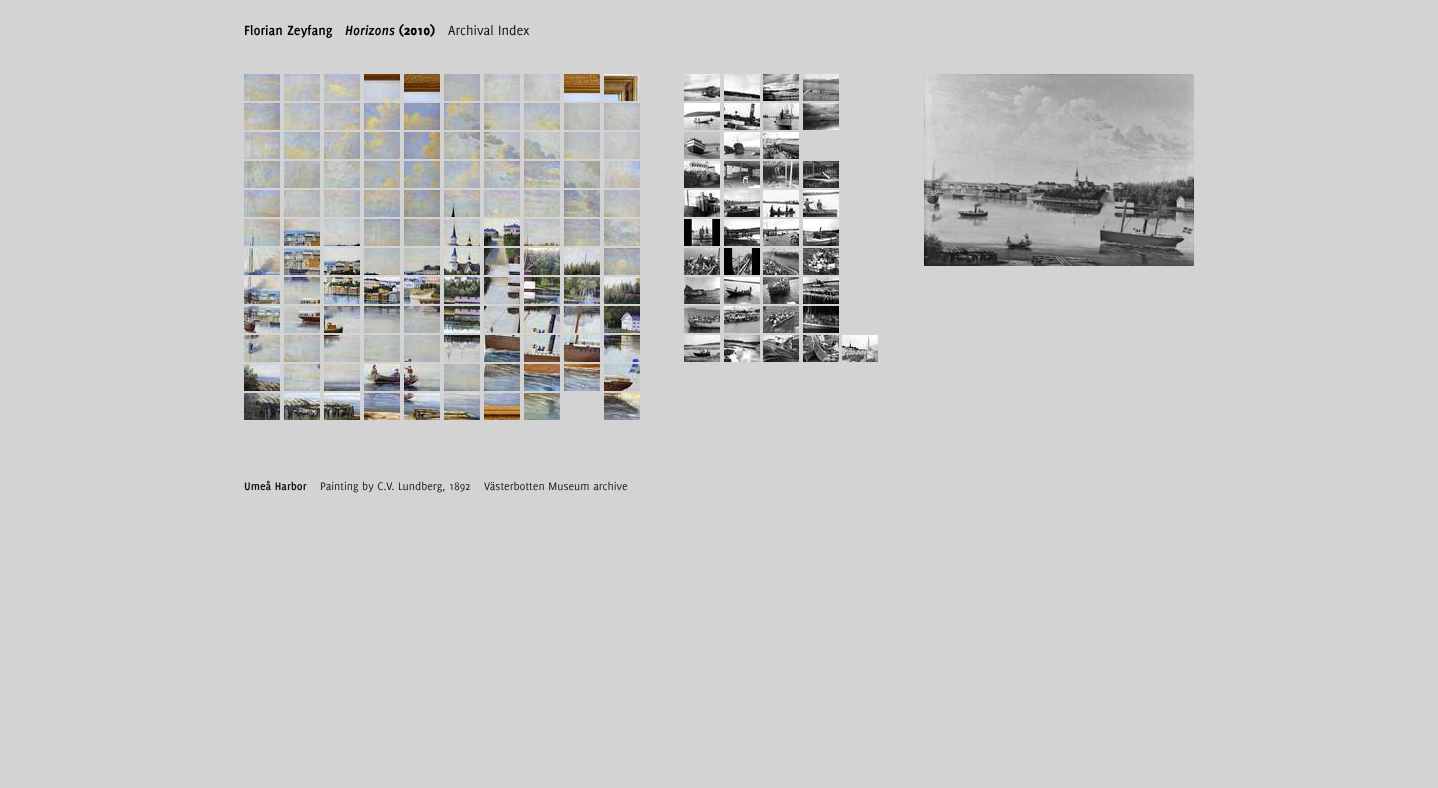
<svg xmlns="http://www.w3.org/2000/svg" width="1438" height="788">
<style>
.a{font:bold 14.5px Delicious;fill:#000}
.b{font:italic bold 14.5px Delicious;fill:#000}
.c{font:900 14.5px Delicious;fill:#000}
.d{font:14.5px Delicious;fill:#111}
.e{font:bold 12px Delicious;fill:#111}
.f{font:12px Delicious;fill:#222}
</style>
<rect width="100%" height="100%" fill="#d3d3d3"/>
<image href="1.png" x="244" y="74" width="36" height="27"/>
<image href="2.png" x="244" y="103" width="36" height="27"/>
<image href="3.png" x="244" y="132" width="36" height="27"/>
<image href="4.png" x="244" y="161" width="36" height="27"/>
<image href="5.png" x="244" y="190" width="36" height="27"/>
<image href="6.png" x="244" y="219" width="36" height="27"/>
<image href="7.png" x="244" y="248" width="36" height="27"/>
<image href="8.png" x="244" y="277" width="36" height="27"/>
<image href="9.png" x="244" y="306" width="36" height="27"/>
<image href="10.png" x="244" y="335" width="36" height="27"/>
<image href="11.png" x="244" y="364" width="36" height="27"/>
<image href="12.png" x="244" y="393" width="36" height="27"/>
<image href="13.png" x="284" y="74" width="36" height="27"/>
<image href="14.png" x="284" y="103" width="36" height="27"/>
<image href="15.png" x="284" y="132" width="36" height="27"/>
<image href="16.png" x="284" y="161" width="36" height="27"/>
<image href="17.png" x="284" y="190" width="36" height="27"/>
<image href="18.png" x="284" y="219" width="36" height="27"/>
<image href="19.png" x="284" y="248" width="36" height="27"/>
<image href="20.png" x="284" y="277" width="36" height="27"/>
<image href="21.png" x="284" y="306" width="36" height="27"/>
<image href="22.png" x="284" y="335" width="36" height="27"/>
<image href="23.png" x="284" y="364" width="36" height="27"/>
<image href="24.png" x="284" y="393" width="36" height="27"/>
<image href="25.png" x="324" y="74" width="36" height="27"/>
<image href="26.png" x="324" y="103" width="36" height="27"/>
<image href="27.png" x="324" y="132" width="36" height="27"/>
<image href="28.png" x="324" y="161" width="36" height="27"/>
<image href="29.png" x="324" y="190" width="36" height="27"/>
<image href="30.png" x="324" y="219" width="36" height="27"/>
<image href="31.png" x="324" y="248" width="36" height="27"/>
<image href="32.png" x="324" y="277" width="36" height="27"/>
<image href="33.png" x="324" y="306" width="36" height="27"/>
<image href="34.png" x="324" y="335" width="36" height="27"/>
<image href="35.png" x="324" y="364" width="36" height="27"/>
<image href="36.png" x="324" y="393" width="36" height="27"/>
<image href="37.png" x="364" y="74" width="36" height="27"/>
<image href="38.png" x="364" y="103" width="36" height="27"/>
<image href="39.png" x="364" y="132" width="36" height="27"/>
<image href="40.png" x="364" y="161" width="36" height="27"/>
<image href="41.png" x="364" y="190" width="36" height="27"/>
<image href="42.png" x="364" y="219" width="36" height="27"/>
<image href="43.png" x="364" y="248" width="36" height="27"/>
<image href="44.png" x="364" y="277" width="36" height="27"/>
<image href="45.png" x="364" y="306" width="36" height="27"/>
<image href="46.png" x="364" y="335" width="36" height="27"/>
<image href="47.png" x="364" y="364" width="36" height="27"/>
<image href="48.png" x="364" y="393" width="36" height="27"/>
<image href="49.png" x="404" y="74" width="36" height="27"/>
<image href="50.png" x="404" y="103" width="36" height="27"/>
<image href="51.png" x="404" y="132" width="36" height="27"/>
<image href="52.png" x="404" y="161" width="36" height="27"/>
<image href="53.png" x="404" y="190" width="36" height="27"/>
<image href="54.png" x="404" y="219" width="36" height="27"/>
<image href="55.png" x="404" y="248" width="36" height="27"/>
<image href="56.png" x="404" y="277" width="36" height="27"/>
<image href="57.png" x="404" y="306" width="36" height="27"/>
<image href="58.png" x="404" y="335" width="36" height="27"/>
<image href="59.png" x="404" y="364" width="36" height="27"/>
<image href="60.png" x="404" y="393" width="36" height="27"/>
<image href="61.png" x="444" y="74" width="36" height="27"/>
<image href="62.png" x="444" y="103" width="36" height="27"/>
<image href="63.png" x="444" y="132" width="36" height="27"/>
<image href="64.png" x="444" y="161" width="36" height="27"/>
<image href="65.png" x="444" y="190" width="36" height="27"/>
<image href="66.png" x="444" y="219" width="36" height="27"/>
<image href="67.png" x="444" y="248" width="36" height="27"/>
<image href="68.png" x="444" y="277" width="36" height="27"/>
<image href="69.png" x="444" y="306" width="36" height="27"/>
<image href="70.png" x="444" y="335" width="36" height="27"/>
<image href="71.png" x="444" y="364" width="36" height="27"/>
<image href="72.png" x="444" y="393" width="36" height="27"/>
<image href="73.png" x="484" y="74" width="36" height="27"/>
<image href="74.png" x="484" y="103" width="36" height="27"/>
<image href="75.png" x="484" y="132" width="36" height="27"/>
<image href="76.png" x="484" y="161" width="36" height="27"/>
<image href="77.png" x="484" y="190" width="36" height="27"/>
<image href="78.png" x="484" y="219" width="36" height="27"/>
<image href="79.png" x="484" y="248" width="36" height="27"/>
<image href="80.png" x="484" y="277" width="36" height="27"/>
<image href="81.png" x="484" y="306" width="36" height="27"/>
<image href="82.png" x="484" y="335" width="36" height="27"/>
<image href="83.png" x="484" y="364" width="36" height="27"/>
<image href="84.png" x="484" y="393" width="36" height="27"/>
<image href="85.png" x="524" y="74" width="36" height="27"/>
<image href="86.png" x="524" y="103" width="36" height="27"/>
<image href="87.png" x="524" y="132" width="36" height="27"/>
<image href="88.png" x="524" y="161" width="36" height="27"/>
<image href="89.png" x="524" y="190" width="36" height="27"/>
<image href="90.png" x="524" y="219" width="36" height="27"/>
<image href="91.png" x="524" y="248" width="36" height="27"/>
<image href="92.png" x="524" y="277" width="36" height="27"/>
<image href="93.png" x="524" y="306" width="36" height="27"/>
<image href="94.png" x="524" y="335" width="36" height="27"/>
<image href="95.png" x="524" y="364" width="36" height="27"/>
<image href="96.png" x="524" y="393" width="36" height="27"/>
<image href="97.png" x="564" y="74" width="36" height="27"/>
<image href="98.png" x="564" y="103" width="36" height="27"/>
<image href="99.png" x="564" y="132" width="36" height="27"/>
<image href="100.png" x="564" y="161" width="36" height="27"/>
<image href="101.png" x="564" y="190" width="36" height="27"/>
<image href="102.png" x="564" y="219" width="36" height="27"/>
<image href="103.png" x="564" y="248" width="36" height="27"/>
<image href="104.png" x="564" y="277" width="36" height="27"/>
<image href="105.png" x="564" y="306" width="36" height="27"/>
<image href="106.png" x="564" y="335" width="36" height="27"/>
<image href="107.png" x="564" y="364" width="36" height="27"/>
<image href="108.png" x="604" y="74" width="36" height="27"/>
<image href="109.png" x="604" y="103" width="36" height="27"/>
<image href="110.png" x="604" y="132" width="36" height="27"/>
<image href="111.png" x="604" y="161" width="36" height="27"/>
<image href="112.png" x="604" y="190" width="36" height="27"/>
<image href="113.png" x="604" y="219" width="36" height="27"/>
<image href="114.png" x="604" y="248" width="36" height="27"/>
<image href="115.png" x="604" y="277" width="36" height="27"/>
<image href="116.png" x="604" y="306" width="36" height="27"/>
<image href="117.png" x="604" y="335" width="36" height="27"/>
<image href="118.png" x="604" y="364" width="36" height="27"/>
<image href="119.png" x="604" y="393" width="36" height="27"/>
<image href="120.png" x="684" y="74" width="36" height="27"/>
<image href="121.png" x="724" y="74" width="36" height="27"/>
<image href="122.png" x="763" y="74" width="36" height="27"/>
<image href="123.png" x="803" y="74" width="36" height="27"/>
<image href="124.png" x="684" y="103" width="36" height="27"/>
<image href="125.png" x="724" y="103" width="36" height="27"/>
<image href="126.png" x="763" y="103" width="36" height="27"/>
<image href="127.png" x="803" y="103" width="36" height="27"/>
<image href="128.png" x="684" y="132" width="36" height="27"/>
<image href="129.png" x="724" y="132" width="36" height="27"/>
<image href="130.png" x="763" y="132" width="36" height="27"/>
<image href="131.png" x="684" y="161" width="36" height="27"/>
<image href="132.png" x="724" y="161" width="36" height="27"/>
<image href="133.png" x="763" y="161" width="36" height="27"/>
<image href="134.png" x="803" y="161" width="36" height="27"/>
<image href="135.png" x="684" y="190" width="36" height="27"/>
<image href="136.png" x="724" y="190" width="36" height="27"/>
<image href="137.png" x="763" y="190" width="36" height="27"/>
<image href="138.png" x="803" y="190" width="36" height="27"/>
<image href="139.png" x="684" y="219" width="36" height="27"/>
<image href="140.png" x="724" y="219" width="36" height="27"/>
<image href="141.png" x="763" y="219" width="36" height="27"/>
<image href="142.png" x="803" y="219" width="36" height="27"/>
<image href="143.png" x="684" y="248" width="36" height="27"/>
<image href="144.png" x="724" y="248" width="36" height="27"/>
<image href="145.png" x="763" y="248" width="36" height="27"/>
<image href="146.png" x="803" y="248" width="36" height="27"/>
<image href="147.png" x="684" y="277" width="36" height="27"/>
<image href="148.png" x="724" y="277" width="36" height="27"/>
<image href="149.png" x="763" y="277" width="36" height="27"/>
<image href="150.png" x="803" y="277" width="36" height="27"/>
<image href="151.png" x="684" y="306" width="36" height="27"/>
<image href="152.png" x="724" y="306" width="36" height="27"/>
<image href="153.png" x="763" y="306" width="36" height="27"/>
<image href="154.png" x="803" y="306" width="36" height="27"/>
<image href="155.png" x="684" y="335" width="36" height="27"/>
<image href="156.png" x="724" y="335" width="36" height="27"/>
<image href="157.png" x="763" y="335" width="36" height="27"/>
<image href="158.png" x="803" y="335" width="36" height="27"/>
<image href="159.png" x="842" y="335" width="36" height="27"/>
<image href="160.png" x="924" y="74" width="270" height="192"/>
<text class="a" x="244" y="35">Florian Zeyfang</text>
<text class="b" x="345" y="35">Horizons</text>
<text class="c" x="399" y="35">(2010)</text>
<text class="d" x="448" y="35">Archival Index</text>
<text class="e" x="244" y="490">Umeå Harbor</text>
<text class="f" x="320" y="490">Painting by C.V. Lundberg, 1892</text>
<text class="f" x="484" y="490">Västerbotten Museum archive</text>
</svg>
